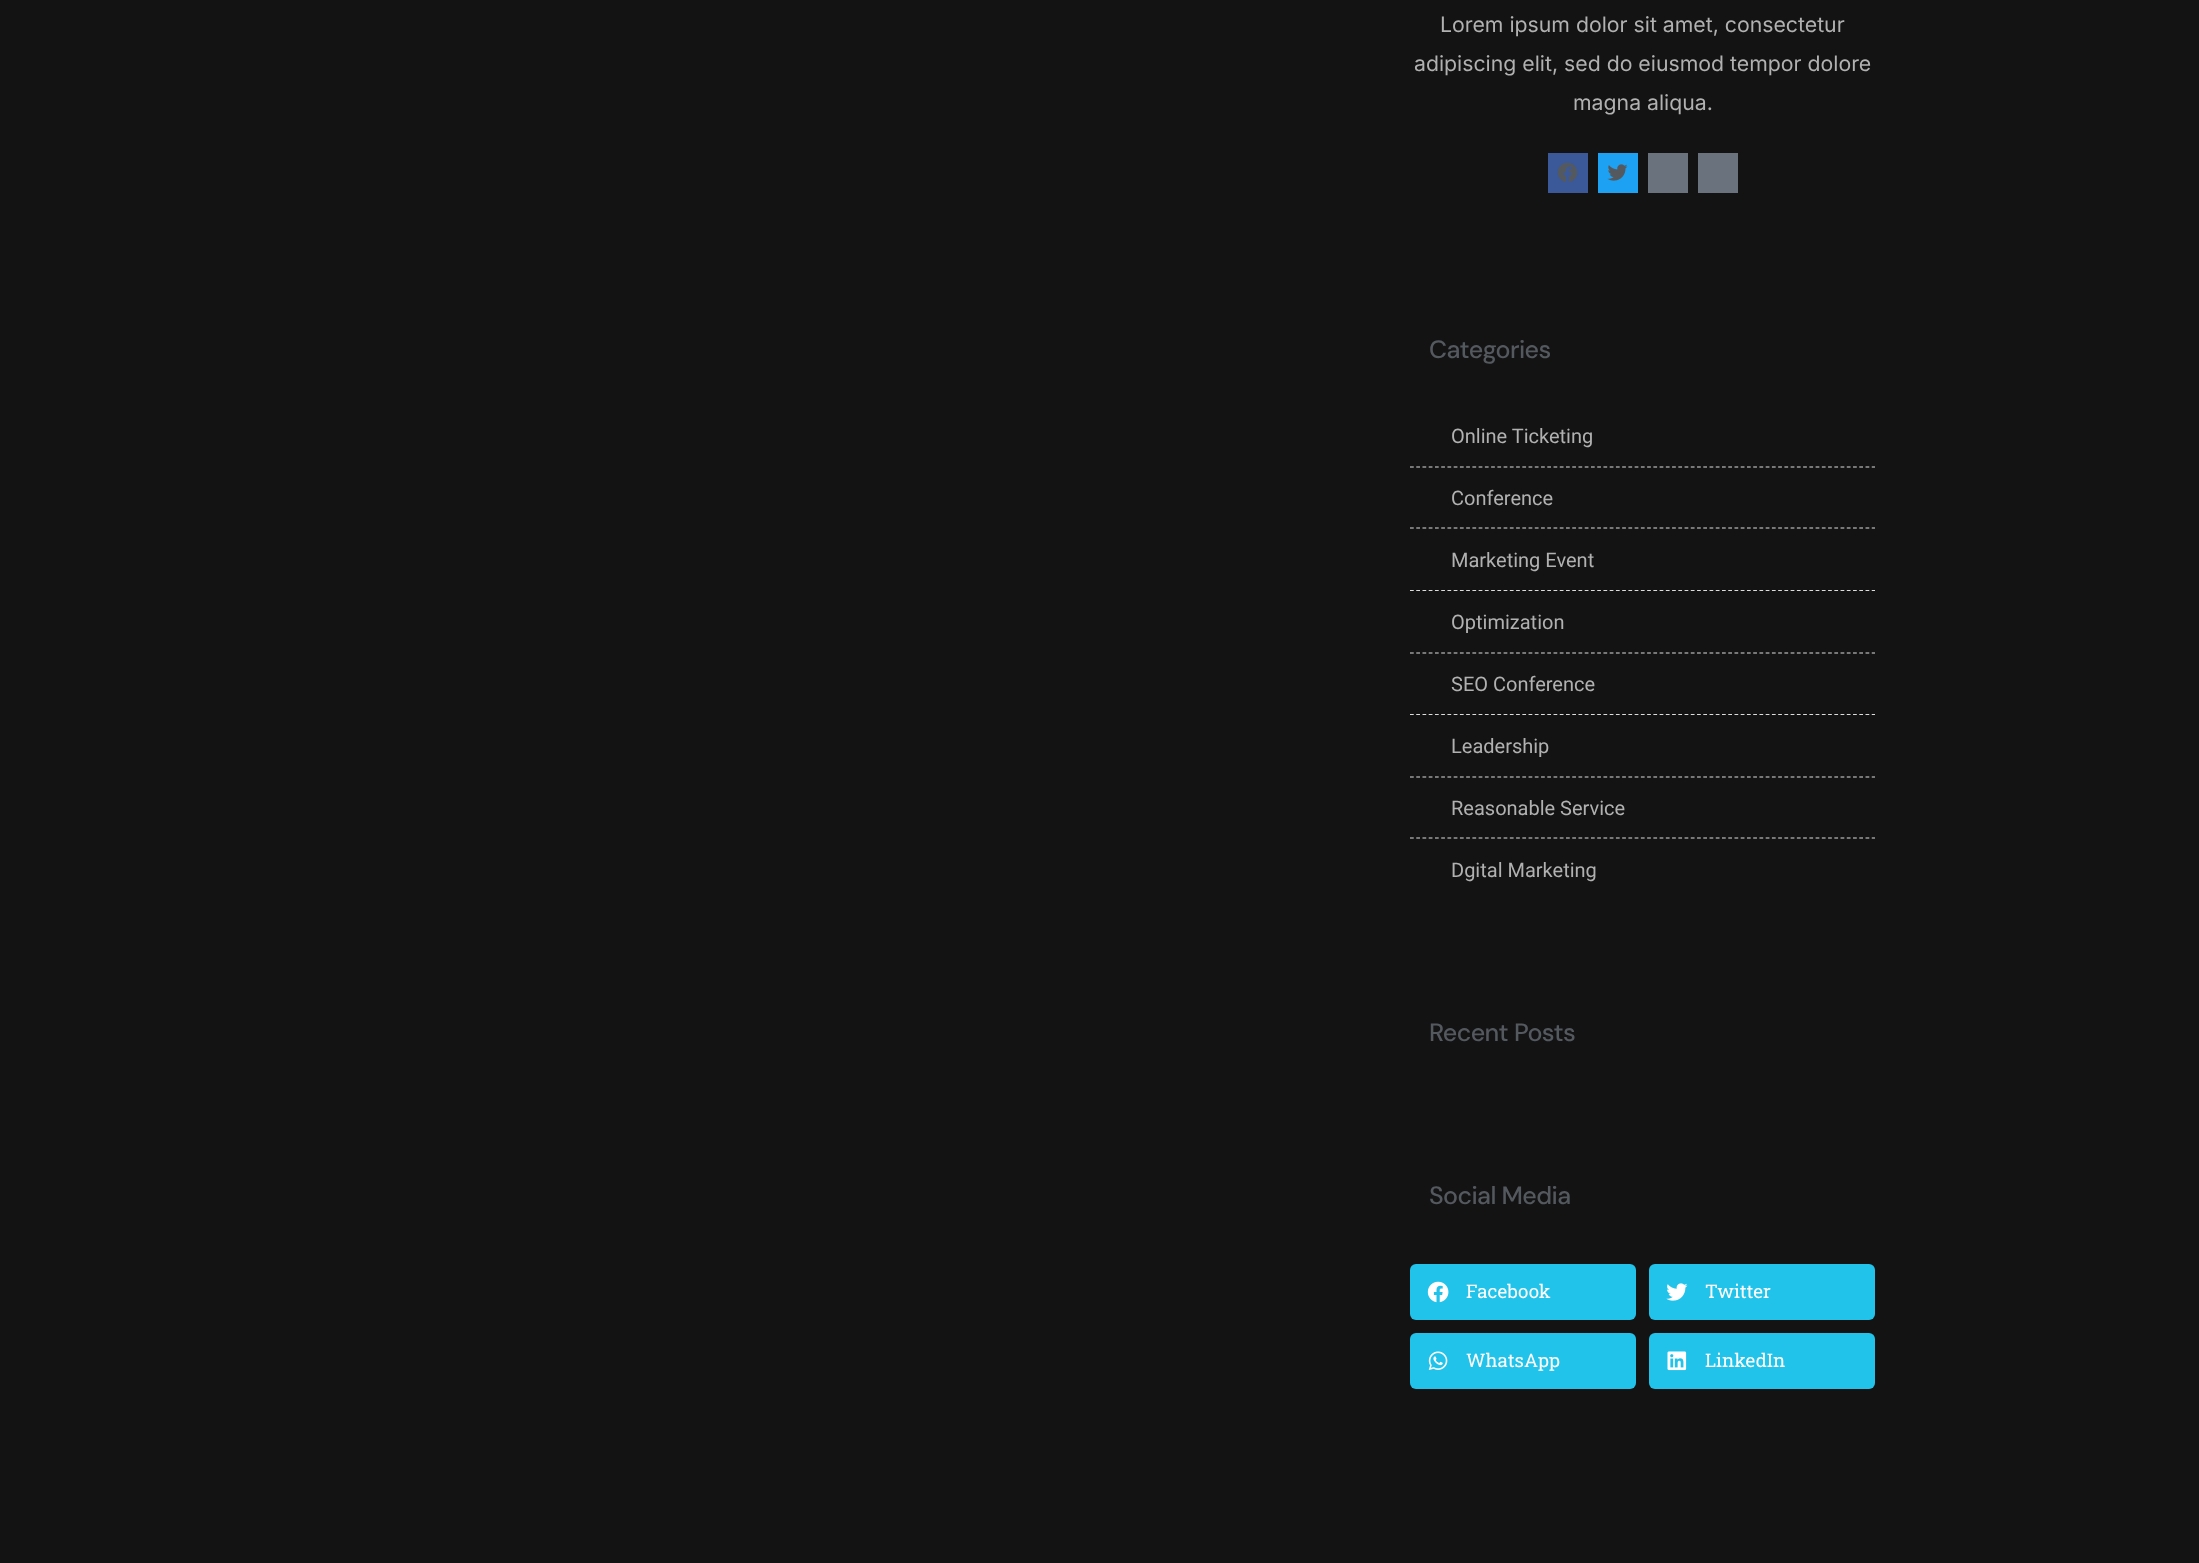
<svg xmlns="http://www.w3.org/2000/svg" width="2199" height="1563">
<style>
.a{font:21.25px Inter;fill:#b1b1b1}
.b{font:500 25px DM Sans;letter-spacing:-0.6px;fill:#54595f}
.c{font:20px Roboto;fill:#b1b1b1}
.d{font:18.75px Roboto Slab;fill:#fff}
</style>
<rect width="100%" height="100%" fill="#131313"/>
<path fill="#3b5998" d="M1548 153h40v40H1548z"/>
<image href="1.png" x="1557" y="162" width="21" height="20"/>
<path fill="#1da1f2" d="M1598 153h40v40H1598z"/>
<image href="2.png" x="1607" y="164" width="21" height="17"/>
<path fill="#69727d" d="M1648 153h40v40H1648z"/>
<path fill="#69727d" d="M1698 153h40v40H1698z"/>
<path fill="none" stroke="#ddd" stroke-width="1.2" stroke-dasharray="3.75 2.49" d="M1410 467h465"/>
<path fill="none" stroke="#ddd" stroke-width="1.2" stroke-dasharray="3.75 2.49" d="M1410 528h465"/>
<path fill="none" stroke="#ddd" stroke-width="1.2" stroke-dasharray="3.75 2.49" d="M1410 590.5h465"/>
<path fill="none" stroke="#ddd" stroke-width="1.2" stroke-dasharray="3.75 2.49" d="M1410 653h465"/>
<path fill="none" stroke="#ddd" stroke-width="1.2" stroke-dasharray="3.75 2.49" d="M1410 714.5h465"/>
<path fill="none" stroke="#ddd" stroke-width="1.2" stroke-dasharray="3.75 2.49" d="M1410 777h465"/>
<path fill="none" stroke="#ddd" stroke-width="1.2" stroke-dasharray="3.75 2.49" d="M1410 838h465"/>
<rect fill="#22c3ea" x="1410" y="1264" width="226" height="56" rx="6"/>
<image href="3.png" x="1427" y="1281" width="22" height="22"/>
<rect fill="#22c3ea" x="1649" y="1264" width="226" height="56" rx="6"/>
<image href="4.png" x="1666" y="1283" width="22" height="18"/>
<rect fill="#22c3ea" x="1410" y="1333" width="226" height="56" rx="6"/>
<image href="5.png" x="1428" y="1351" width="20" height="19"/>
<rect fill="#22c3ea" x="1649" y="1333" width="226" height="56" rx="6"/>
<image href="6.png" x="1667" y="1351" width="20" height="20"/>
<text class="a" x="1440" y="32">Lorem ipsum dolor sit amet, consectetur</text>
<text class="a" x="1414" y="71">adipiscing elit, sed do eiusmod tempor dolore</text>
<text class="a" x="1573" y="110">magna aliqua.</text>
<text class="b" x="1429" y="358">Categories</text>
<text class="c" x="1451" y="443">Online Ticketing</text>
<text class="c" x="1451" y="505">Conference</text>
<text class="c" x="1451" y="567">Marketing Event</text>
<text class="c" x="1451" y="629">Optimization</text>
<text class="c" x="1451" y="691">SEO Conference</text>
<text class="c" x="1451" y="753">Leadership</text>
<text class="c" x="1451" y="815">Reasonable Service</text>
<text class="c" x="1451" y="877">Dgital Marketing</text>
<text class="b" x="1429" y="1041">Recent Posts</text>
<text class="b" x="1429" y="1204">Social Media</text>
<text class="d" x="1466" y="1298">Facebook</text>
<text class="d" x="1705" y="1298">Twitter</text>
<text class="d" x="1466" y="1367">WhatsApp</text>
<text class="d" x="1705" y="1367">LinkedIn</text>
</svg>
